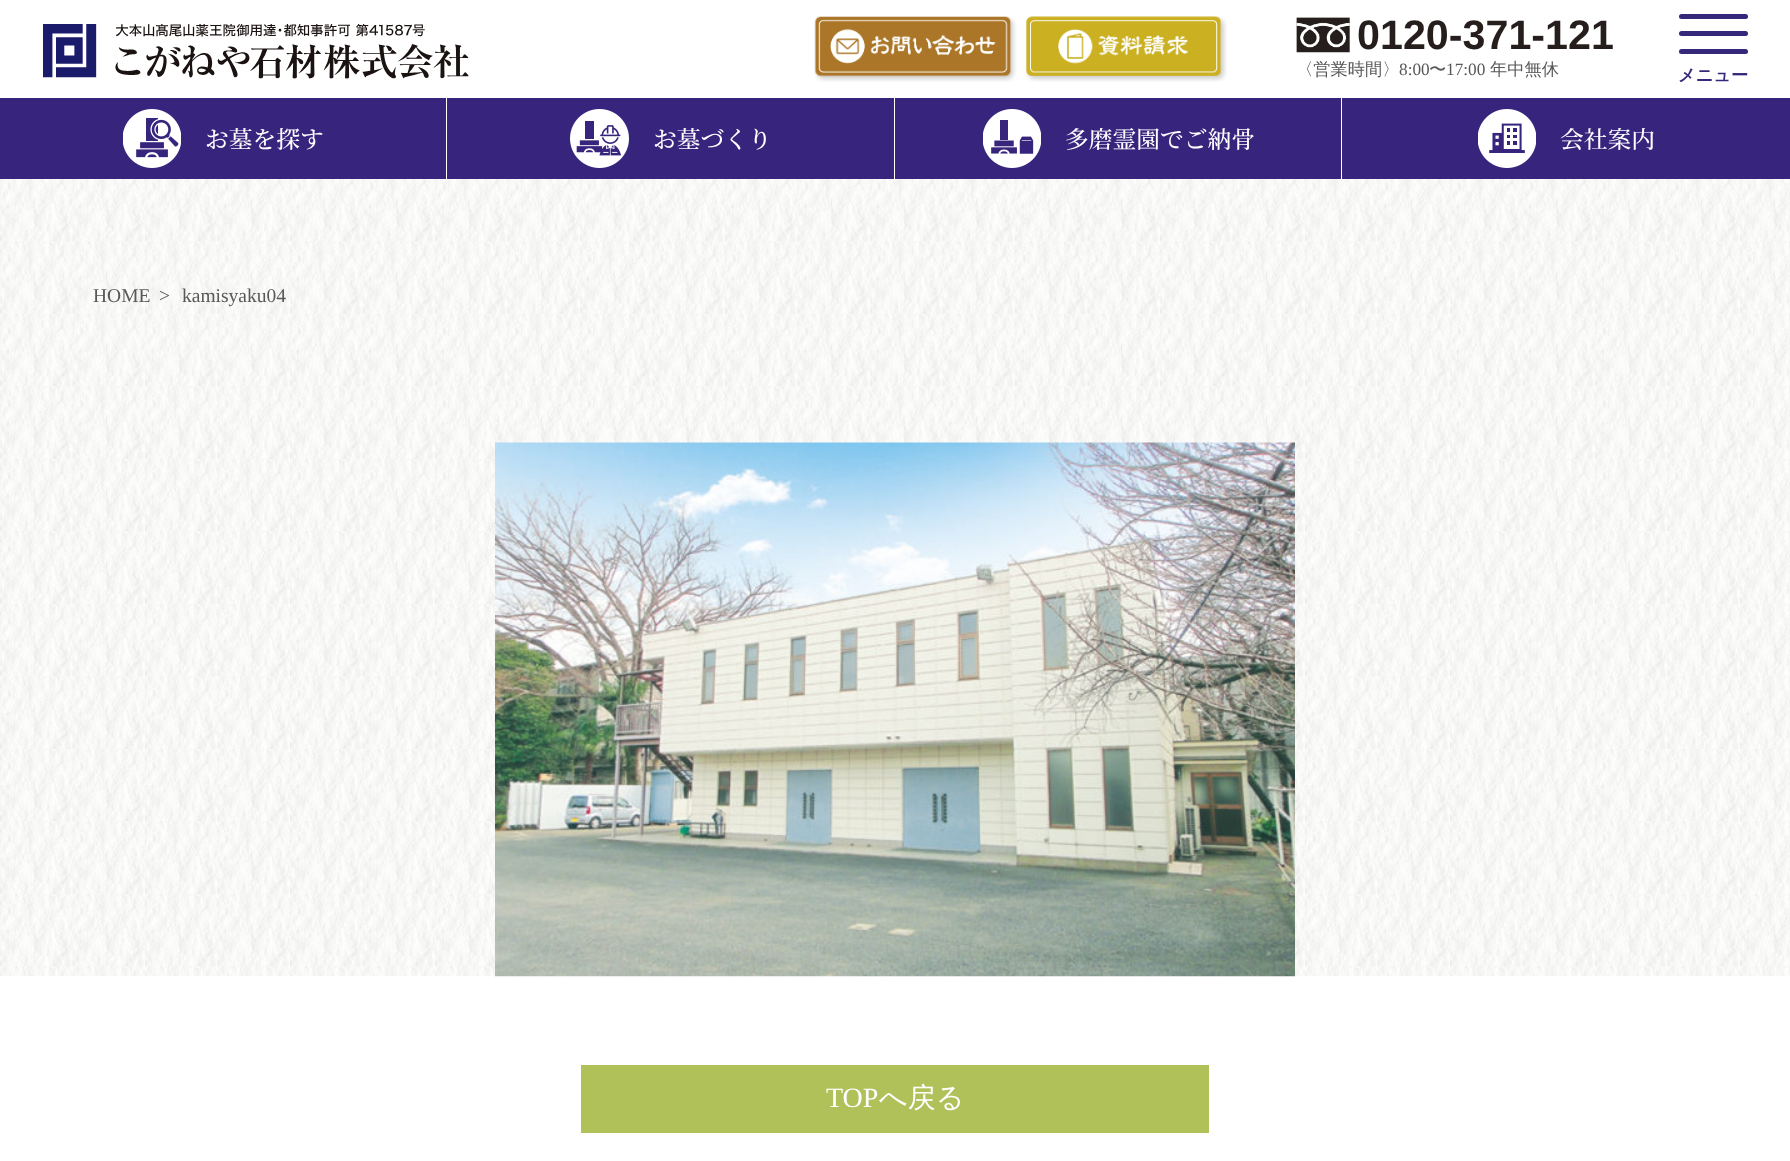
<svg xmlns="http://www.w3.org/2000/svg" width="1790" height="1161">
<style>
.a{font:bold 41.25px Liberation Sans;fill:#251e1c}
.b{font:500 17.25px WenQuanYi Zen Hei;fill:#595858}
.c{font:17.25px Liberation Serif;fill:#595858}
.d{font:bold 17.25px WenQuanYi Zen Hei;fill:#35287a}
.e{font:500 23.75px Noto Serif JP;fill:#fff}
.f{font:19.5px Liberation Serif;fill:#595858}
.g{font:28px Liberation Serif;fill:#fff}
.h{font:500 28px WenQuanYi Zen Hei;fill:#fff}
</style>
<rect width="100%" height="100%" fill="#fff"/>
<image href="1.png" x="0" y="179" width="1790" height="797"/>
<image href="2.png" x="43" y="24" width="426" height="55"/>
<image href="3.png" x="814" y="16" width="203" height="66"/>
<image href="4.png" x="1025" y="16" width="202" height="66"/>
<image href="5.png" x="1296" y="17" width="54" height="36"/>
<rect fill="#35287a" x="1679" y="14" width="69" height="5" rx="2.5"/>
<rect fill="#35287a" x="1679" y="31" width="69" height="5" rx="2.5"/>
<rect fill="#35287a" x="1679" y="49" width="69" height="5" rx="2.5"/>
<path fill="#36247d" d="M0 98h894v81H0z"/>
<path fill="#fff" d="M446 96h1v83H446z"/>
<image href="6.png" x="123" y="109" width="58" height="59"/>
<image href="7.png" x="570" y="109" width="59" height="59"/>
<path fill="#36247d" d="M895 98h895v81H895z"/>
<path fill="#fff" d="M1341 96h1v83H1341z"/>
<image href="8.png" x="983" y="109" width="58" height="59"/>
<image href="9.png" x="1478" y="109" width="58" height="59"/>
<image href="10.png" x="495" y="442" width="800" height="535"/>
<path fill="#b0c15a" d="M581 1065h628v68H581z"/>
<text class="a" x="1357" y="49">0120-371-121</text>
<text class="b" x="1296" y="75">〈営業時間〉</text>
<text class="c" x="1399" y="75">8:00</text>
<text class="b" x="1429" y="75">〜</text>
<text class="c" x="1446" y="75">17:00</text>
<text class="b" x="1490" y="75">年中無休</text>
<text class="d" x="1678" y="81">メニュー</text>
<text class="e" x="205" y="148">お墓を探す</text>
<text class="e" x="653" y="148">お墓づくり</text>
<text class="e" x="1065" y="148">多磨霊園でご納骨</text>
<text class="e" x="1560" y="148">会社案内</text>
<text class="f" x="93" y="302">HOME</text>
<text class="f" x="159" y="302">&gt;</text>
<text class="f" x="182" y="302">kamisyaku04</text>
<text class="g" x="826" y="1107">TOP</text>
<text class="h" x="879" y="1107">へ戻る</text>
</svg>
